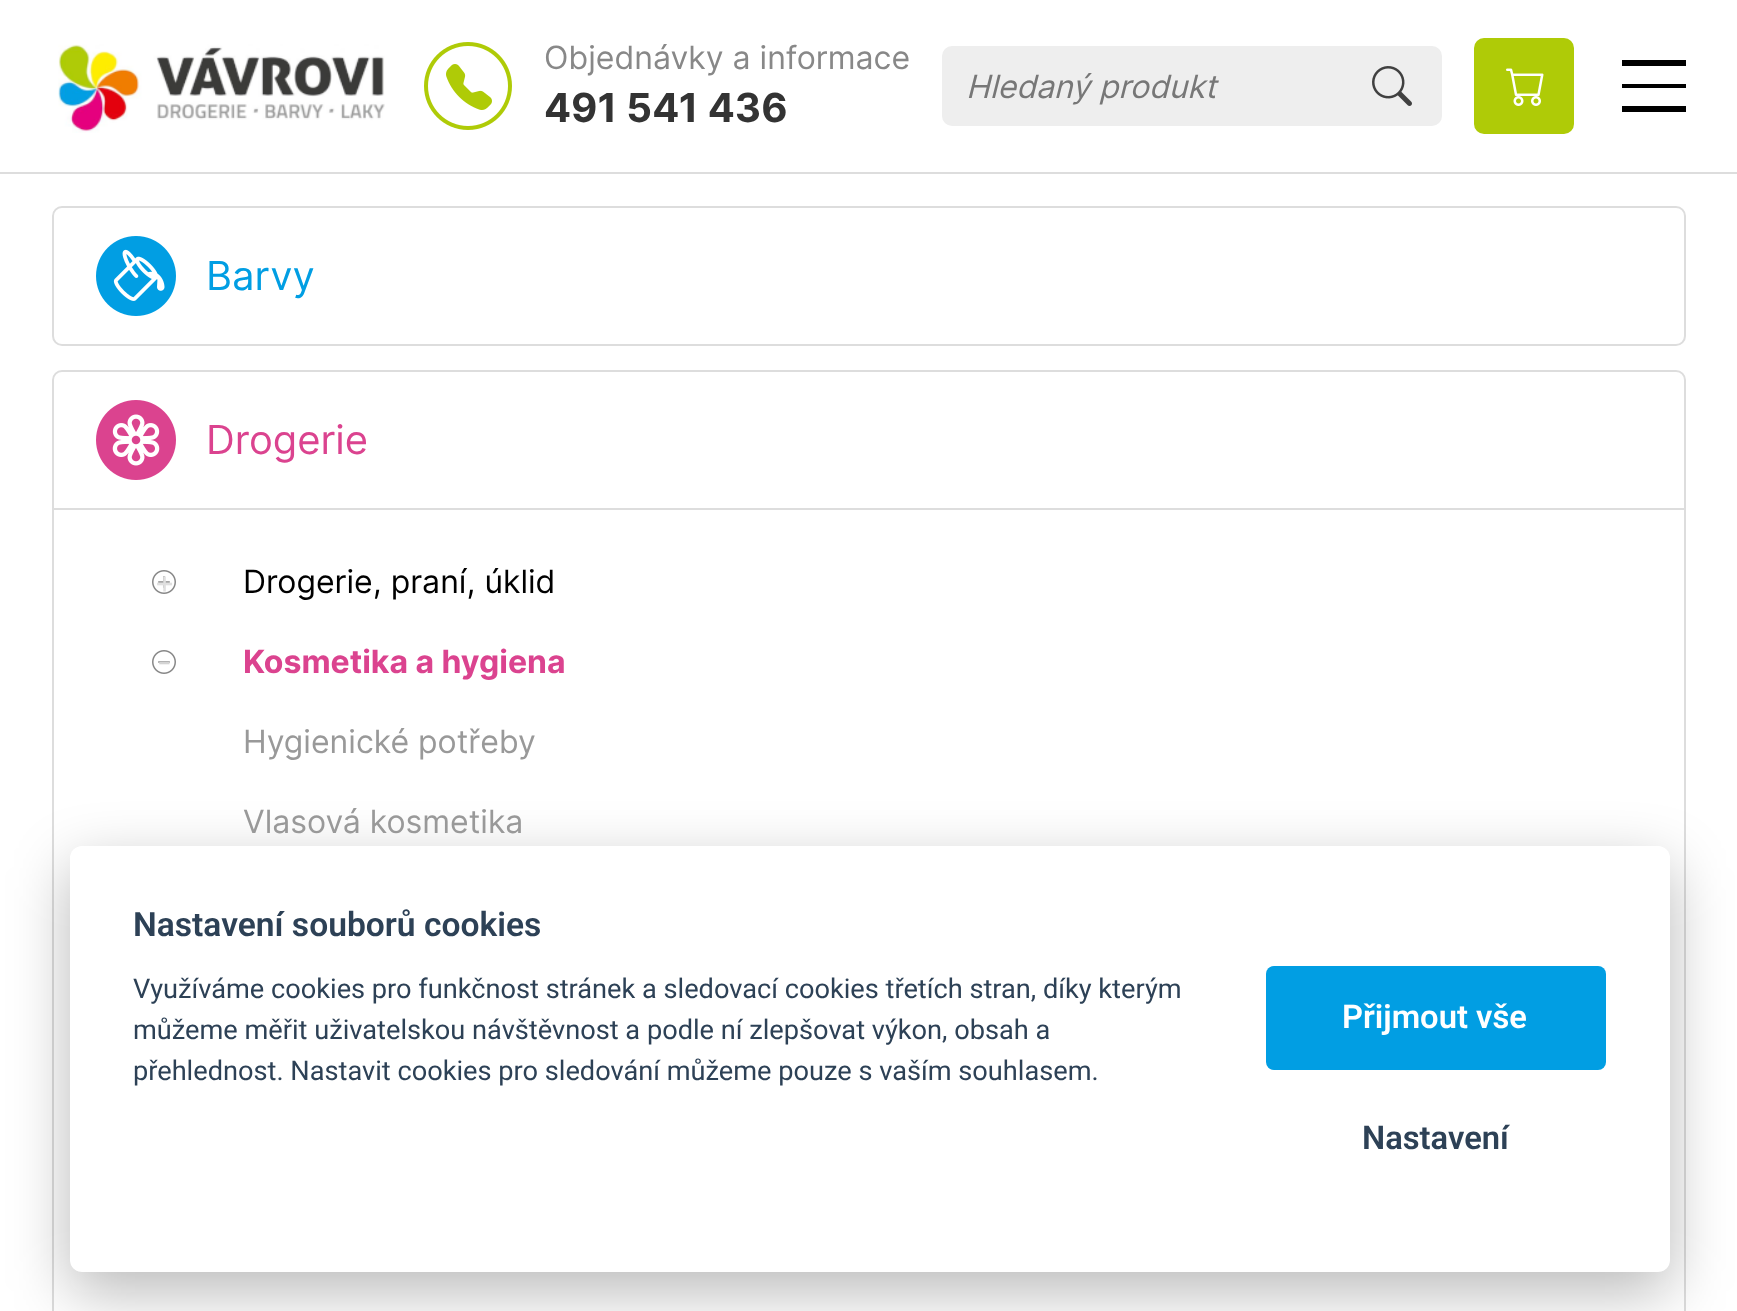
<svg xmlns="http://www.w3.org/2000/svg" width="1737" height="1311">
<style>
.a{font:32px Inter;fill:#888}
.b{font:bold 40px Inter;fill:#333}
.c{font:italic 32px Inter;fill:#777}
.d{font:40px Inter;fill:#019ee3}
.e{font:40px Inter;fill:#db438f}
.f{font:32px Inter;fill:#e0e0e0}
.g{font:32px Inter;fill:#000}
.h{font:32px Inter;fill:#d4d4d4}
.i{font:bold 32px Inter;fill:#db438f}
.j{font:32px Inter;fill:#999}
.k{font:600 33.6px Roboto;fill:#2d4156}
.l{font:27.2px Roboto;fill:#2d4156}
.m{font:600 32.75px Roboto;fill:#fff}
.n{font:600 32.75px Roboto;fill:#2d4156}
</style>
<rect width="100%" height="100%" fill="#fff"/>
<path fill="#ddd" d="M0 172h1737v2H0z"/>
<image href="1.png" x="58" y="44" width="327" height="89"/>
<image href="2.png" x="424" y="42" width="88" height="88"/>
<rect fill="#eee" x="942" y="46" width="500" height="80" rx="10"/>
<image href="3.png" x="1372" y="66" width="40" height="40"/>
<rect fill="#afcb07" x="1474" y="38" width="100" height="96" rx="10"/>
<image href="4.png" x="1506" y="68" width="38" height="38"/>
<path fill="#000" d="M1622 60h64v6H1622z"/>
<path fill="#000" d="M1622 84h64v4H1622z"/>
<path fill="#000" d="M1622 106h64v6H1622z"/>
<rect fill="none" stroke="#ddd" stroke-width="2" x="53" y="207" width="1632" height="138" rx="9"/>
<image href="5.png" x="96" y="236" width="80" height="80"/>
<rect fill="none" stroke="#ddd" stroke-width="2" x="53" y="371" width="1632" height="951" rx="9"/>
<image href="6.png" x="96" y="400" width="80" height="80"/>
<path fill="#ddd" d="M54 508h1630v2H54z"/>
<image href="7.png" x="152" y="570" width="24" height="24"/>
<image href="8.png" x="152" y="650" width="24" height="24"/>
<rect fill="#02020347" filter="blur(30px)" x="70" y="866" width="1600" height="426" rx="12"/>
<rect fill="#fff" x="70" y="846" width="1600" height="426" rx="12"/>
<rect fill="#019ee3" x="1266" y="966" width="340" height="104" rx="8"/>
<text class="a" x="544" y="69">Objednávky a informace</text>
<text class="b" x="544" y="122">491 541 436</text>
<text class="c" x="966" y="98">Hledaný produkt</text>
<text class="d" x="206" y="290">Barvy</text>
<text class="e" x="206" y="454">Drogerie</text>
<text class="f" x="154" y="593">+</text>
<text class="g" x="243" y="593">Drogerie, praní, úklid</text>
<text class="h" x="157" y="673">-</text>
<text class="i" x="243" y="673">Kosmetika a hygiena</text>
<text class="j" x="243" y="753">Hygienické potřeby</text>
<text class="j" x="243" y="833">Vlasová kosmetika</text>
<text class="k" x="133" y="936">Nastavení souborů cookies</text>
<text class="l" x="133" y="998">Využíváme cookies pro funkčnost stránek a sledovací cookies třetích stran, díky kterým</text>
<text class="l" x="133" y="1039">můžeme měřit uživatelskou návštěvnost a podle ní zlepšovat výkon, obsah a</text>
<text class="l" x="133" y="1080">přehlednost. Nastavit cookies pro sledování můžeme pouze s vaším souhlasem.</text>
<text class="m" x="1342" y="1028">Přijmout vše</text>
<text class="n" x="1362" y="1149">Nastavení</text>
</svg>
